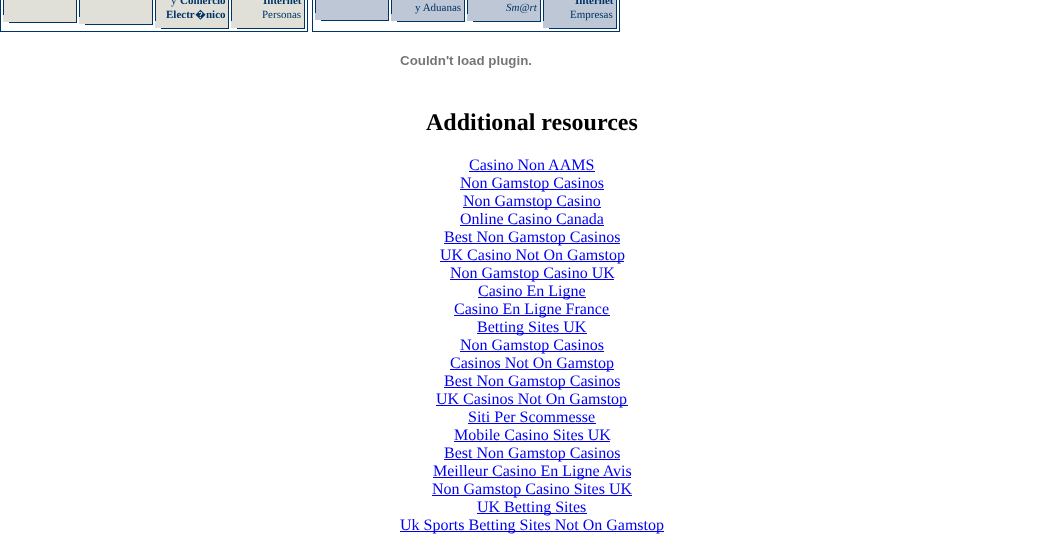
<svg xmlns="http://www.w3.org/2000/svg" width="1064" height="550">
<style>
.a{font:11px Liberation Serif;fill:#036}
.b{font:bold 11px Liberation Serif;fill:#036}
.c{font:bold 11px Noto Sans;fill:#036}
.d{font:italic 11px Liberation Serif;fill:#036}
.e{font:bold 24px Liberation Serif;fill:#000}
.f{font:16px Liberation Serif;fill:#00e}
</style>
<rect width="100%" height="100%" fill="#fff"/>
<path fill="#036" d="M0 0h308v32H0z"/>
<path fill="#fff" d="M1 0h306v31H1z"/>
<path fill="#036" d="M3 0h1v15H3z"/>
<path fill="#e0e0d8" d="M4 0h72v15H4z"/>
<path fill="#036" d="M76 0h1v23H76z"/>
<path fill="#e0e0d8" d="M3 15h73v7H3z"/>
<path fill="#036" d="M9 22h67v1H9z"/>
<path fill="#036" d="M79 0h1v17H79z"/>
<path fill="#e0e0d8" d="M80 0h72v17H80z"/>
<path fill="#036" d="M152 0h1v25H152z"/>
<path fill="#e0e0d8" d="M79 17h73v7H79z"/>
<path fill="#036" d="M85 24h67v1H85z"/>
<path fill="#036" d="M155 0h1v21H155z"/>
<path fill="#e0e0d8" d="M156 0h72v21H156z"/>
<path fill="#036" d="M228 0h1v29H228z"/>
<path fill="#e0e0d8" d="M155 21h73v7H155z"/>
<path fill="#036" d="M161 28h67v1H161z"/>
<path fill="#036" d="M231 0h1v21H231z"/>
<path fill="#e0e0d8" d="M232 0h72v21H232z"/>
<path fill="#036" d="M304 0h1v29H304z"/>
<path fill="#e0e0d8" d="M231 21h73v7H231z"/>
<path fill="#036" d="M237 28h67v1H237z"/>
<path fill="#036" d="M312 0h308v32H312z"/>
<path fill="#fff" d="M313 0h306v31H313z"/>
<path fill="#036" d="M315 0h1v13H315z"/>
<path fill="#bdc7d6" d="M316 0h72v13H316z"/>
<path fill="#036" d="M388 0h1v21H388z"/>
<path fill="#bdc7d6" d="M315 13h73v7H315z"/>
<path fill="#036" d="M321 20h67v1H321z"/>
<path fill="#036" d="M391 0h1v14H391z"/>
<path fill="#bdc7d6" d="M392 0h72v14H392z"/>
<path fill="#036" d="M464 0h1v22H464z"/>
<path fill="#bdc7d6" d="M391 14h73v7H391z"/>
<path fill="#036" d="M397 21h67v1H397z"/>
<path fill="#036" d="M467 0h1v14H467z"/>
<path fill="#bdc7d6" d="M468 0h72v14H468z"/>
<path fill="#036" d="M540 0h1v22H540z"/>
<path fill="#bdc7d6" d="M467 14h73v7H467z"/>
<path fill="#036" d="M473 21h67v1H473z"/>
<path fill="#036" d="M543 0h1v21H543z"/>
<path fill="#bdc7d6" d="M544 0h72v21H544z"/>
<path fill="#036" d="M616 0h1v29H616z"/>
<path fill="#bdc7d6" d="M543 21h73v7H543z"/>
<path fill="#036" d="M549 28h67v1H549z"/>
<image href="1.png" x="400" y="56" width="131" height="12"/>
<path fill="#00e" d="M469 171h126v1H469z"/>
<path fill="#00e" d="M460 189h144v1H460z"/>
<path fill="#00e" d="M463 207h138v1H463z"/>
<path fill="#00e" d="M460 225h144v1H460z"/>
<path fill="#00e" d="M444 243h176v1H444z"/>
<path fill="#00e" d="M440 261h184v1H440z"/>
<path fill="#00e" d="M450 279h164v1H450z"/>
<path fill="#00e" d="M478 297h108v1H478z"/>
<path fill="#00e" d="M454 315h156v1H454z"/>
<path fill="#00e" d="M477 333h110v1H477z"/>
<path fill="#00e" d="M460 351h144v1H460z"/>
<path fill="#00e" d="M450 369h164v1H450z"/>
<path fill="#00e" d="M444 387h176v1H444z"/>
<path fill="#00e" d="M436 405h192v1H436z"/>
<path fill="#00e" d="M468 423h128v1H468z"/>
<path fill="#00e" d="M454 441h156v1H454z"/>
<path fill="#00e" d="M444 459h176v1H444z"/>
<path fill="#00e" d="M433 477h198v1H433z"/>
<path fill="#00e" d="M432 495h200v1H432z"/>
<path fill="#00e" d="M477 513h110v1H477z"/>
<path fill="#00e" d="M400 531h264v1H400z"/>
<text class="a" x="171" y="4">y</text>
<text class="b" x="180" y="4">Comercio</text>
<text class="b" x="166" y="18">Electr</text>
<text class="c" x="195" y="18">�</text>
<text class="b" x="206" y="18">nico</text>
<text class="b" x="263" y="4">Internet</text>
<text class="a" x="262" y="18">Personas</text>
<text class="a" x="415" y="11">y Aduanas</text>
<text class="d" x="506" y="11">Sm@rt</text>
<text class="b" x="575" y="4">Internet</text>
<text class="a" x="570" y="18">Empresas</text>
<text class="e" x="426" y="130">Additional resources</text>
<text class="f" x="469" y="170">Casino Non AAMS</text>
<text class="f" x="460" y="188">Non Gamstop Casinos</text>
<text class="f" x="463" y="206">Non Gamstop Casino</text>
<text class="f" x="460" y="224">Online Casino Canada</text>
<text class="f" x="444" y="242">Best Non Gamstop Casinos</text>
<text class="f" x="440" y="260">UK Casino Not On Gamstop</text>
<text class="f" x="450" y="278">Non Gamstop Casino UK</text>
<text class="f" x="478" y="296">Casino En Ligne</text>
<text class="f" x="454" y="314">Casino En Ligne France</text>
<text class="f" x="477" y="332">Betting Sites UK</text>
<text class="f" x="460" y="350">Non Gamstop Casinos</text>
<text class="f" x="450" y="368">Casinos Not On Gamstop</text>
<text class="f" x="444" y="386">Best Non Gamstop Casinos</text>
<text class="f" x="436" y="404">UK Casinos Not On Gamstop</text>
<text class="f" x="468" y="422">Siti Per Scommesse</text>
<text class="f" x="454" y="440">Mobile Casino Sites UK</text>
<text class="f" x="444" y="458">Best Non Gamstop Casinos</text>
<text class="f" x="433" y="476">Meilleur Casino En Ligne Avis</text>
<text class="f" x="432" y="494">Non Gamstop Casino Sites UK</text>
<text class="f" x="477" y="512">UK Betting Sites</text>
<text class="f" x="400" y="530">Uk Sports Betting Sites Not On Gamstop</text>
</svg>
